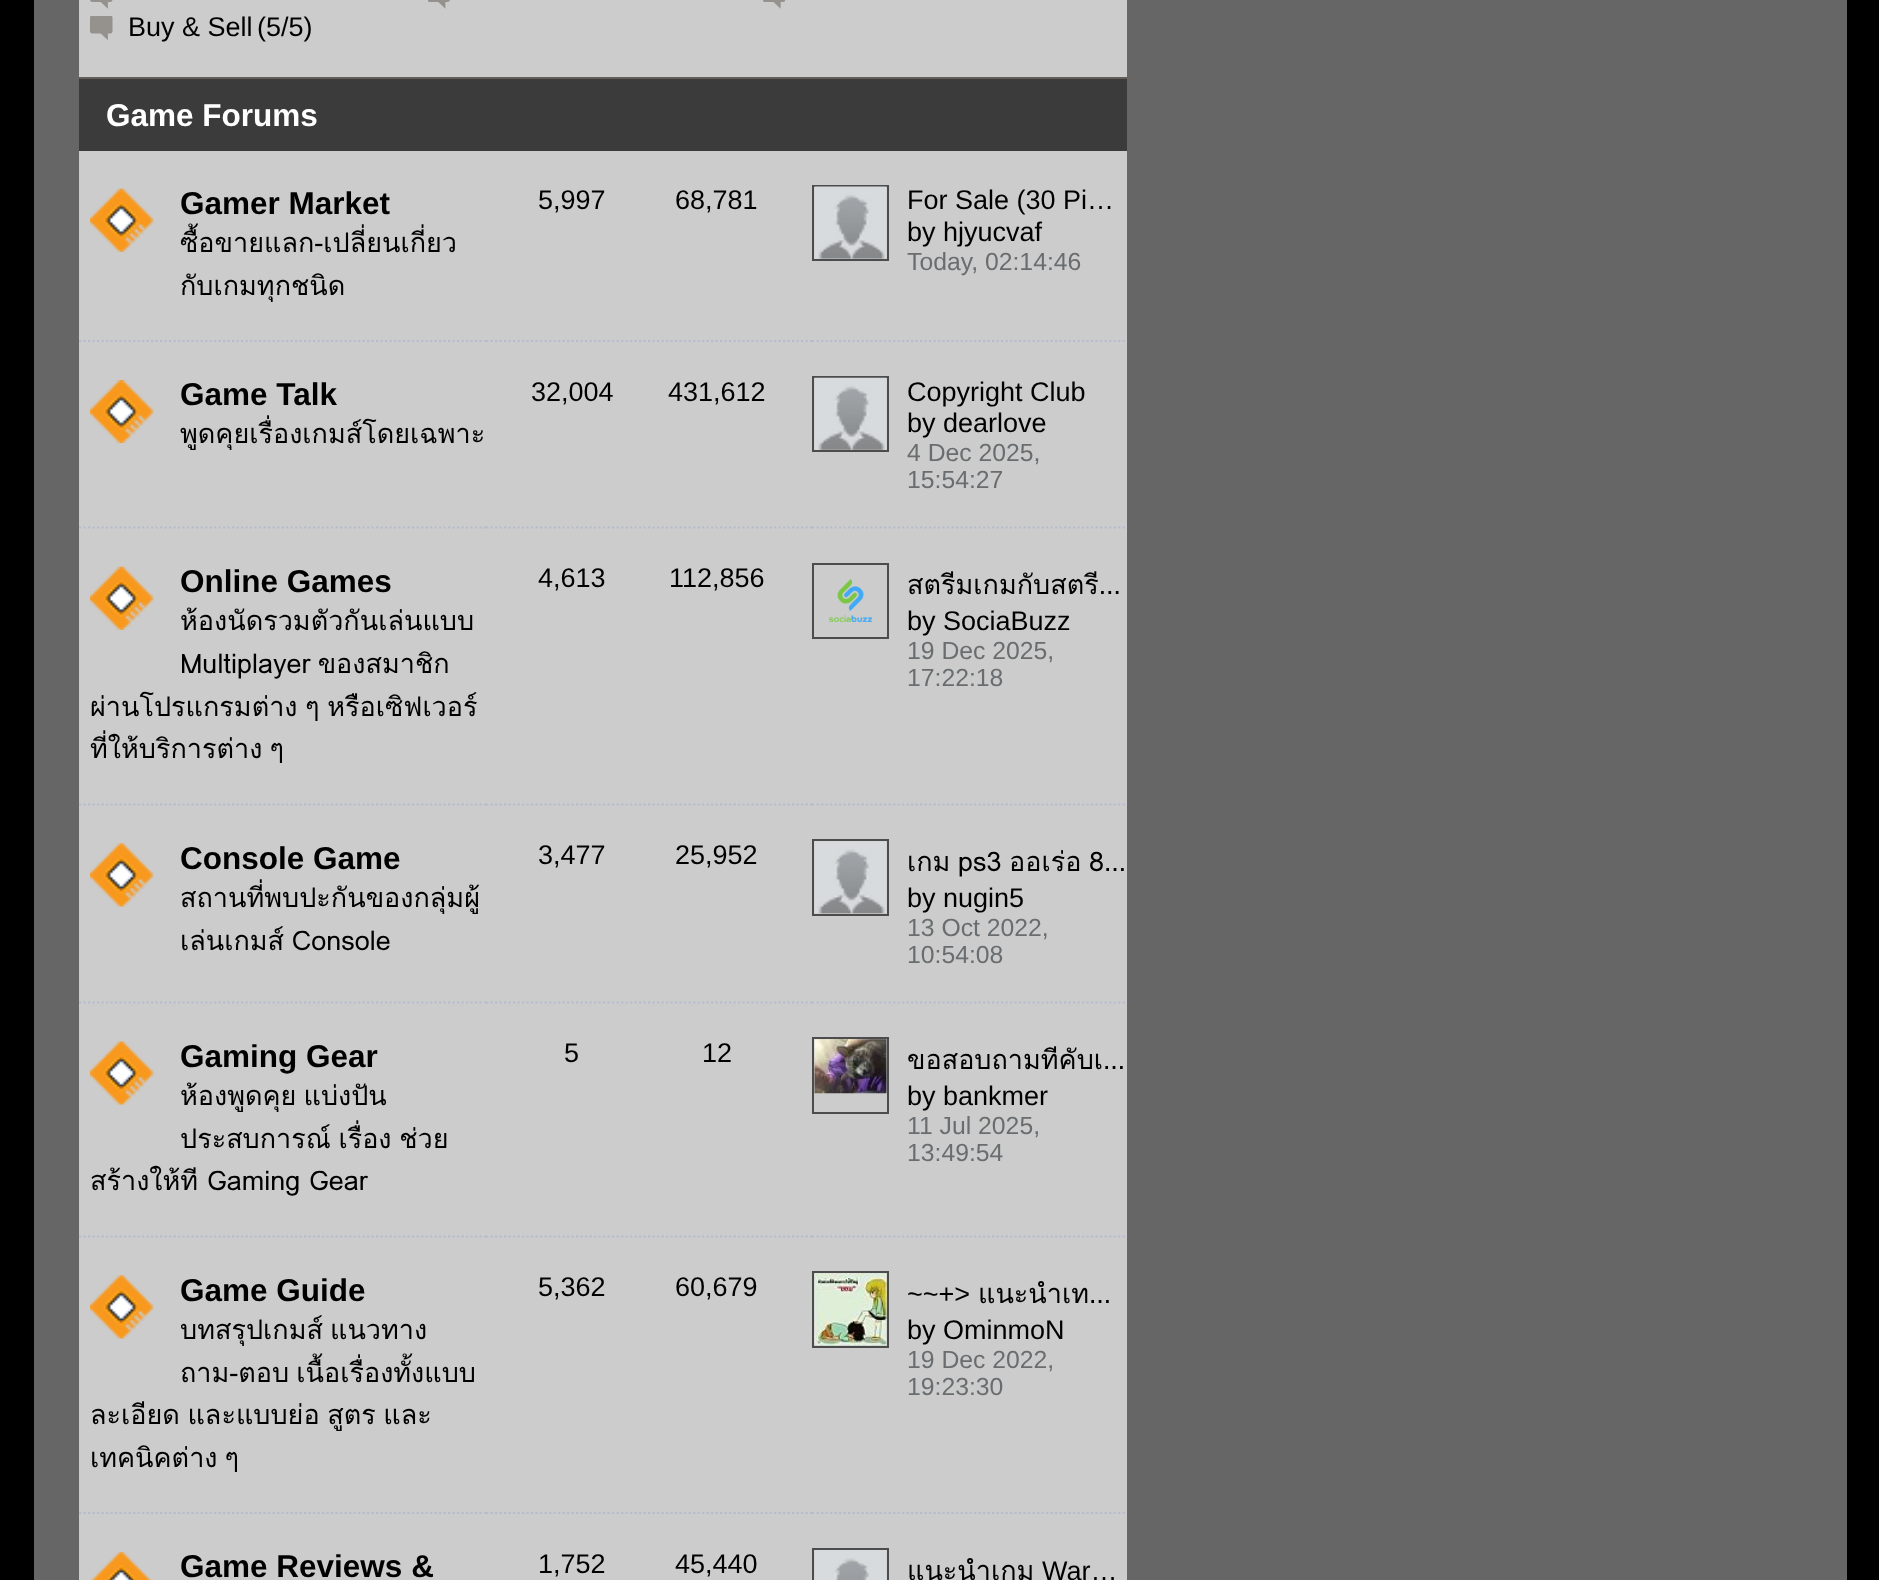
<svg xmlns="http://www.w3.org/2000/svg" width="1879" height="1580">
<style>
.a{font:27px Liberation Sans;fill:#000}
.b{font:bold 31.5px Liberation Sans;fill:#fff}
.c{font:bold 31.5px Liberation Sans;fill:#000}
.d{font:27px Loma;fill:#000}
.e{font:24.75px Liberation Sans;fill:#6a6d6f}
</style>
<rect width="100%" height="100%" fill="#000"/>
<path fill="#666" d="M34 0h1813v1580H34z"/>
<path fill="#ccc" d="M79 0h1048v77H79z"/>
<image href="1.png" x="90" y="0" width="23" height="9"/>
<image href="2.png" x="428" y="0" width="22" height="9"/>
<image href="3.png" x="763" y="0" width="22" height="9"/>
<image href="4.png" x="90" y="16" width="23" height="24"/>
<path fill="#3b3b3b" d="M79 79h1048v72H79z"/>
<path fill="#625d59" d="M79 77h1048v2H79z"/>
<path fill="#ccc" d="M79 151h1048v1429H79z"/>
<image href="5.png" x="90" y="188" width="64" height="64"/>
<path fill="none" stroke="#4c4c4c" stroke-width="2" d="M813 186h75v74H813z"/>
<image href="6.png" x="814" y="186" width="73" height="73"/>
<path fill="none" stroke="#b7bbce" stroke-width="2.2" stroke-dasharray="2.25 2.25" d="M79 341h407"/>
<image href="7.png" x="90" y="380" width="64" height="63"/>
<path fill="none" stroke="#b7bbce" stroke-width="2.2" stroke-dasharray="2.25 2.25" d="M486 341h153"/>
<path fill="none" stroke="#b7bbce" stroke-width="2.2" stroke-dasharray="2.25 2.25" d="M639 341h173"/>
<path fill="none" stroke="#b7bbce" stroke-width="2.2" stroke-dasharray="2.25 2.25" d="M812 341h315"/>
<path fill="none" stroke="#4c4c4c" stroke-width="2" d="M813 377h75v74H813z"/>
<image href="8.png" x="814" y="377" width="73" height="73"/>
<path fill="none" stroke="#b7bbce" stroke-width="2.2" stroke-dasharray="2.25 2.25" d="M79 527.5h407"/>
<image href="5.png" x="90" y="566" width="64" height="64"/>
<path fill="none" stroke="#b7bbce" stroke-width="2.2" stroke-dasharray="2.25 2.25" d="M486 527.5h153"/>
<path fill="none" stroke="#b7bbce" stroke-width="2.2" stroke-dasharray="2.25 2.25" d="M639 527.5h173"/>
<path fill="none" stroke="#b7bbce" stroke-width="2.2" stroke-dasharray="2.25 2.25" d="M812 527.5h315"/>
<path fill="none" stroke="#4c4c4c" stroke-width="2" d="M813 564h75v74H813z"/>
<image href="9.png" x="829" y="579" width="43" height="43"/>
<path fill="none" stroke="#b7bbce" stroke-width="2.2" stroke-dasharray="2.25 2.25" d="M79 804.5h407"/>
<image href="10.png" x="90" y="843" width="64" height="64"/>
<path fill="none" stroke="#b7bbce" stroke-width="2.2" stroke-dasharray="2.25 2.25" d="M486 804.5h153"/>
<path fill="none" stroke="#b7bbce" stroke-width="2.2" stroke-dasharray="2.25 2.25" d="M639 804.5h173"/>
<path fill="none" stroke="#b7bbce" stroke-width="2.2" stroke-dasharray="2.25 2.25" d="M812 804.5h315"/>
<path fill="none" stroke="#4c4c4c" stroke-width="2" d="M813 840h75v75H813z"/>
<image href="11.png" x="814" y="841" width="73" height="73"/>
<path fill="none" stroke="#b7bbce" stroke-width="2.2" stroke-dasharray="2.25 2.25" d="M79 1002.5h407"/>
<image href="12.png" x="90" y="1041" width="64" height="64"/>
<path fill="none" stroke="#b7bbce" stroke-width="2.2" stroke-dasharray="2.25 2.25" d="M486 1002.5h153"/>
<path fill="none" stroke="#b7bbce" stroke-width="2.2" stroke-dasharray="2.25 2.25" d="M639 1002.5h173"/>
<path fill="none" stroke="#b7bbce" stroke-width="2.2" stroke-dasharray="2.25 2.25" d="M812 1002.5h315"/>
<path fill="none" stroke="#4c4c4c" stroke-width="2" d="M813 1038h75v75H813z"/>
<image href="13.png" x="814" y="1039" width="73" height="55"/>
<path fill="none" stroke="#b7bbce" stroke-width="2.2" stroke-dasharray="2.25 2.25" d="M79 1236.5h407"/>
<image href="10.png" x="90" y="1275" width="64" height="64"/>
<path fill="none" stroke="#b7bbce" stroke-width="2.2" stroke-dasharray="2.25 2.25" d="M486 1236.5h153"/>
<path fill="none" stroke="#b7bbce" stroke-width="2.2" stroke-dasharray="2.25 2.25" d="M639 1236.5h173"/>
<path fill="none" stroke="#b7bbce" stroke-width="2.2" stroke-dasharray="2.25 2.25" d="M812 1236.5h315"/>
<path fill="none" stroke="#4c4c4c" stroke-width="2" d="M813 1272h75v75H813z"/>
<image href="14.png" x="814" y="1273" width="73" height="73"/>
<path fill="none" stroke="#b7bbce" stroke-width="2.2" stroke-dasharray="2.25 2.25" d="M79 1513h407"/>
<image href="15.png" x="90" y="1552" width="62" height="28"/>
<path fill="none" stroke="#b7bbce" stroke-width="2.2" stroke-dasharray="2.25 2.25" d="M486 1513h153"/>
<path fill="none" stroke="#b7bbce" stroke-width="2.2" stroke-dasharray="2.25 2.25" d="M639 1513h173"/>
<path fill="none" stroke="#b7bbce" stroke-width="2.2" stroke-dasharray="2.25 2.25" d="M812 1513h315"/>
<path fill="none" stroke="#4c4c4c" stroke-width="2" d="M813 1549h75v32H813z"/>
<image href="16.png" x="814" y="1550" width="73" height="30"/>
<text class="a" x="128" y="36">Buy &amp; Sell</text>
<text class="a" x="257" y="36">(5/5)</text>
<text class="b" x="106" y="126">Game Forums</text>
<text class="c" x="180" y="214">Gamer Market</text>
<text class="d" x="180" y="252">ซื้อขายแลก-เปลี่ยนเกี่ยว</text>
<text class="d" x="180" y="295">กับเกมทุกชนิด</text>
<text class="a" x="538" y="209">5,997</text>
<text class="a" x="675" y="209">68,781</text>
<text class="a" x="907" y="209">For Sale (30 Pi…</text>
<text class="a" x="907" y="241">by hjyucvaf</text>
<text class="e" x="907" y="270">Today, 02:14:46</text>
<text class="c" x="180" y="405">Game Talk</text>
<text class="d" x="180" y="443">พูดคุยเรื่องเกมส์โดยเฉพาะ</text>
<text class="a" x="531" y="401">32,004</text>
<text class="a" x="668" y="401">431,612</text>
<text class="a" x="907" y="401">Copyright Club</text>
<text class="a" x="907" y="432">by dearlove</text>
<text class="e" x="907" y="461">4 Dec 2025,</text>
<text class="e" x="907" y="488">15:54:27</text>
<text class="c" x="180" y="592">Online Games</text>
<text class="d" x="180" y="630">ห้องนัดรวมตัวกันเล่นแบบ</text>
<text class="d" x="180" y="673" word-spacing="-2">Multiplayer ของสมาชิก</text>
<text class="d" x="90" y="716" word-spacing="-1.5">ผ่านโปรแกรมต่าง ๆ หรือเซิฟเวอร์</text>
<text class="d" x="90" y="758" word-spacing="-2">ที่ให้บริการต่าง ๆ</text>
<text class="a" x="538" y="587">4,613</text>
<text class="a" x="669" y="587">112,856</text>
<text class="d" x="907" y="594" word-spacing="-2">สตรีมเกมกับสตรี…</text>
<text class="a" x="907" y="630">by SociaBuzz</text>
<text class="e" x="907" y="659">19 Dec 2025,</text>
<text class="e" x="907" y="686">17:22:18</text>
<text class="c" x="180" y="869">Console Game</text>
<text class="d" x="180" y="907">สถานที่พบปะกันของกลุ่มผู้</text>
<text class="d" x="180" y="950" word-spacing="-1.5">เล่นเกมส์ Console</text>
<text class="a" x="538" y="864">3,477</text>
<text class="a" x="675" y="864">25,952</text>
<text class="d" x="907" y="871" word-spacing="-1.5">เกม ps3 ออเร่อ 8…</text>
<text class="a" x="907" y="907">by nugin5</text>
<text class="e" x="907" y="936">13 Oct 2022,</text>
<text class="e" x="907" y="963">10:54:08</text>
<text class="c" x="180" y="1067">Gaming Gear</text>
<text class="d" x="180" y="1105" word-spacing="-2">ห้องพูดคุย แบ่งปัน</text>
<text class="d" x="180" y="1148" word-spacing="-1.5">ประสบการณ์ เรื่อง ช่วย</text>
<text class="d" x="90" y="1190">สร้างให้ที Gaming Gear</text>
<text class="a" x="564" y="1062">5</text>
<text class="a" x="702" y="1062">12</text>
<text class="d" x="907" y="1069">ขอสอบถามทีคับเ…</text>
<text class="a" x="907" y="1105">by bankmer</text>
<text class="e" x="907" y="1134">11 Jul 2025,</text>
<text class="e" x="907" y="1161">13:49:54</text>
<text class="c" x="180" y="1301">Game Guide</text>
<text class="d" x="180" y="1339" word-spacing="-2">บทสรุปเกมส์ แนวทาง</text>
<text class="d" x="180" y="1382" word-spacing="-2">ถาม-ตอบ เนื้อเรื่องทั้งแบบ</text>
<text class="d" x="90" y="1424" word-spacing="-1.5">ละเอียด และแบบย่อ สูตร และ</text>
<text class="d" x="90" y="1467" word-spacing="-2">เทคนิคต่าง ๆ</text>
<text class="a" x="538" y="1296">5,362</text>
<text class="a" x="675" y="1296">60,679</text>
<text class="a" x="907" y="1303">~~+&gt;</text>
<text class="d" x="978" y="1303">แนะนำเท…</text>
<text class="a" x="907" y="1339">by OminmoN</text>
<text class="e" x="907" y="1368">19 Dec 2022,</text>
<text class="e" x="907" y="1395">19:23:30</text>
<text class="c" x="180" y="1577">Game Reviews &amp;</text>
<text class="a" x="538" y="1573">1,752</text>
<text class="a" x="675" y="1573">45,440</text>
<text class="d" x="907" y="1580">แนะนำเกม</text>
<text class="a" x="1042" y="1580">War…</text>
</svg>
